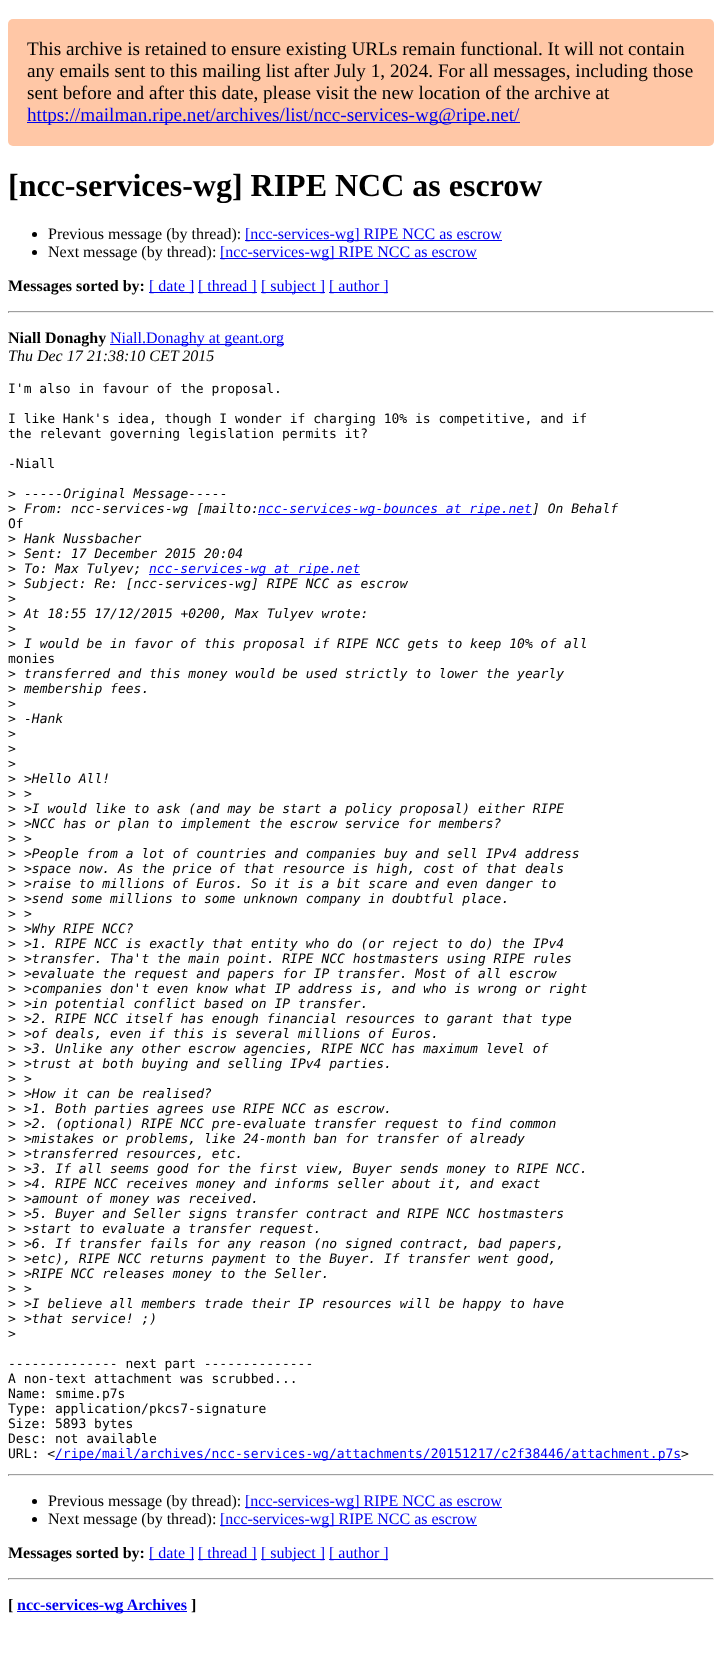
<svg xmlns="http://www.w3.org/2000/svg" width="722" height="1657">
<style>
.a{font:19.2px Liberation Serif;fill:#000}
.b{font:19.2px Liberation Serif;fill:#00e}
.c{font:bold 32px Liberation Serif;fill:#000}
.d{font:16px Liberation Serif;fill:#000}
.e{font:16px Liberation Serif;fill:#00e}
.f{font:bold 16px Liberation Serif;fill:#000}
.g{font:italic 16px Liberation Serif;fill:#000}
.h{font:13px DejaVu Sans Mono;fill:#000}
.i{font:italic 13px DejaVu Sans Mono;fill:#000}
.j{font:italic 13px DejaVu Sans Mono;fill:#00e}
.k{font:13px DejaVu Sans Mono;fill:#00e}
.l{font:bold 16px Liberation Serif;fill:#00e}
</style>
<rect width="100%" height="100%" fill="#fff"/>
<rect fill="#ffc7a6" x="8" y="19" width="706" height="127" rx="5"/>
<path fill="#00e" d="M27 122h493v1H27z"/>
<circle fill="#000" cx="34.5" cy="234.5" r="2.5"/>
<path fill="#00e" d="M245 240h257v1H245z"/>
<circle fill="#000" cx="34.5" cy="252.5" r="2.5"/>
<path fill="#00e" d="M220 258h257v1H220z"/>
<path fill="#00e" d="M149 292h45v1H149z"/>
<path fill="#00e" d="M198 292h59v1H198z"/>
<path fill="#00e" d="M261 292h64v1H261z"/>
<path fill="#00e" d="M329 292h59v1H329z"/>
<path fill="#9f9f9f" d="M8 311h706v1H8z"/>
<path fill="#eee" d="M713 311h1v2H713z"/>
<path fill="#eee" d="M8 312h706v1H8z"/>
<path fill="#9f9f9f" d="M8 311h1v2H8z"/>
<path fill="#00e" d="M110 344h174v1H110z"/>
<path fill="#00e" d="M258 514h274v1H258z"/>
<path fill="#00e" d="M149 574h211v1H149z"/>
<path fill="#00e" d="M55 1459h626v1H55z"/>
<path fill="#9f9f9f" d="M8 1474h706v1H8z"/>
<path fill="#eee" d="M713 1474h1v2H713z"/>
<path fill="#eee" d="M8 1475h706v1H8z"/>
<path fill="#9f9f9f" d="M8 1474h1v2H8z"/>
<circle fill="#000" cx="34.5" cy="1501.5" r="2.5"/>
<path fill="#00e" d="M245 1507h257v1H245z"/>
<circle fill="#000" cx="34.5" cy="1519.5" r="2.5"/>
<path fill="#00e" d="M220 1525h257v1H220z"/>
<path fill="#00e" d="M149 1559h45v1H149z"/>
<path fill="#00e" d="M198 1559h59v1H198z"/>
<path fill="#00e" d="M261 1559h64v1H261z"/>
<path fill="#00e" d="M329 1559h59v1H329z"/>
<path fill="#9f9f9f" d="M8 1578h706v1H8z"/>
<path fill="#eee" d="M713 1578h1v2H713z"/>
<path fill="#eee" d="M8 1579h706v1H8z"/>
<path fill="#9f9f9f" d="M8 1578h1v2H8z"/>
<path fill="#00e" d="M17 1611h170v1H17z"/>
<text class="a" x="27" y="55">This archive is retained to ensure existing URLs remain functional. It will not contain</text>
<text class="a" x="27" y="77">any emails sent to this mailing list after July 1, 2024. For all messages, including those</text>
<text class="a" x="27" y="99">sent before and after this date, please visit the new location of the archive at</text>
<text class="b" x="27" y="121">https://mailman.ripe.net/archives/list/ncc-services-wg@ripe.net/</text>
<text class="c" x="8" y="196">[ncc-services-wg] RIPE NCC as escrow</text>
<text class="d" x="48" y="239">Previous message (by thread):</text>
<text class="e" x="245" y="239">[ncc-services-wg] RIPE NCC as escrow</text>
<text class="d" x="48" y="257">Next message (by thread):</text>
<text class="e" x="220" y="257">[ncc-services-wg] RIPE NCC as escrow</text>
<text class="f" x="8" y="291">Messages sorted by:</text>
<text class="e" x="149" y="291">[ date ]</text>
<text class="e" x="198" y="291">[ thread ]</text>
<text class="e" x="261" y="291">[ subject ]</text>
<text class="e" x="329" y="291">[ author ]</text>
<text class="f" x="8" y="343">Niall Donaghy</text>
<text class="e" x="110" y="343">Niall.Donaghy at geant.org</text>
<text class="g" x="8" y="361">Thu Dec 17 21:38:10 CET 2015</text>
<text class="h" x="8" y="393">I'm also in favour of the proposal.</text>
<text class="h" x="8" y="423">I like Hank's idea, though I wonder if charging 10% is competitive, and if</text>
<text class="h" x="8" y="438">the relevant governing legislation permits it?</text>
<text class="h" x="8" y="468">-Niall</text>
<text class="h" x="8" y="498">&gt;</text>
<text class="i" x="24" y="498">-----Original Message-----</text>
<text class="h" x="8" y="513">&gt;</text>
<text class="i" x="24" y="513">From: ncc-services-wg [mailto:</text>
<text class="j" x="258" y="513">ncc-services-wg-bounces at ripe.net</text>
<text class="i" x="532" y="513">] On Behalf</text>
<text class="h" x="8" y="528">Of</text>
<text class="h" x="8" y="543">&gt;</text>
<text class="i" x="24" y="543">Hank Nussbacher</text>
<text class="h" x="8" y="558">&gt;</text>
<text class="i" x="24" y="558">Sent: 17 December 2015 20:04</text>
<text class="h" x="8" y="573">&gt;</text>
<text class="i" x="24" y="573">To: Max Tulyev;</text>
<text class="j" x="149" y="573">ncc-services-wg at ripe.net</text>
<text class="h" x="8" y="588">&gt;</text>
<text class="i" x="24" y="588">Subject: Re: [ncc-services-wg] RIPE NCC as escrow</text>
<text class="h" x="8" y="603">&gt;</text>
<text class="h" x="8" y="618">&gt;</text>
<text class="i" x="24" y="618">At 18:55 17/12/2015 +0200, Max Tulyev wrote:</text>
<text class="h" x="8" y="633">&gt;</text>
<text class="h" x="8" y="648">&gt;</text>
<text class="i" x="24" y="648">I would be in favor of this proposal if RIPE NCC gets to keep 10% of all</text>
<text class="h" x="8" y="663">monies</text>
<text class="h" x="8" y="678">&gt;</text>
<text class="i" x="24" y="678">transferred and this money would be used strictly to lower the yearly</text>
<text class="h" x="8" y="693">&gt;</text>
<text class="i" x="24" y="693">membership fees.</text>
<text class="h" x="8" y="708">&gt;</text>
<text class="h" x="8" y="723">&gt;</text>
<text class="i" x="24" y="723">-Hank</text>
<text class="h" x="8" y="738">&gt;</text>
<text class="h" x="8" y="753">&gt;</text>
<text class="h" x="8" y="768">&gt;</text>
<text class="h" x="8" y="783">&gt;</text>
<text class="i" x="24" y="783">&gt;Hello All!</text>
<text class="h" x="8" y="798">&gt;</text>
<text class="i" x="24" y="798">&gt;</text>
<text class="h" x="8" y="813">&gt;</text>
<text class="i" x="24" y="813">&gt;I would like to ask (and may be start a policy proposal) either RIPE</text>
<text class="h" x="8" y="828">&gt;</text>
<text class="i" x="24" y="828">&gt;NCC has or plan to implement the escrow service for members?</text>
<text class="h" x="8" y="843">&gt;</text>
<text class="i" x="24" y="843">&gt;</text>
<text class="h" x="8" y="858">&gt;</text>
<text class="i" x="24" y="858">&gt;People from a lot of countries and companies buy and sell IPv4 address</text>
<text class="h" x="8" y="873">&gt;</text>
<text class="i" x="24" y="873">&gt;space now. As the price of that resource is high, cost of that deals</text>
<text class="h" x="8" y="888">&gt;</text>
<text class="i" x="24" y="888">&gt;raise to millions of Euros. So it is a bit scare and even danger to</text>
<text class="h" x="8" y="903">&gt;</text>
<text class="i" x="24" y="903">&gt;send some millions to some unknown company in doubtful place.</text>
<text class="h" x="8" y="918">&gt;</text>
<text class="i" x="24" y="918">&gt;</text>
<text class="h" x="8" y="933">&gt;</text>
<text class="i" x="24" y="933">&gt;Why RIPE NCC?</text>
<text class="h" x="8" y="948">&gt;</text>
<text class="i" x="24" y="948">&gt;1. RIPE NCC is exactly that entity who do (or reject to do) the IPv4</text>
<text class="h" x="8" y="963">&gt;</text>
<text class="i" x="24" y="963">&gt;transfer. Tha't the main point. RIPE NCC hostmasters using RIPE rules</text>
<text class="h" x="8" y="978">&gt;</text>
<text class="i" x="24" y="978">&gt;evaluate the request and papers for IP transfer. Most of all escrow</text>
<text class="h" x="8" y="993">&gt;</text>
<text class="i" x="24" y="993">&gt;companies don't even know what IP address is, and who is wrong or right</text>
<text class="h" x="8" y="1008">&gt;</text>
<text class="i" x="24" y="1008">&gt;in potential conflict based on IP transfer.</text>
<text class="h" x="8" y="1023">&gt;</text>
<text class="i" x="24" y="1023">&gt;2. RIPE NCC itself has enough financial resources to garant that type</text>
<text class="h" x="8" y="1038">&gt;</text>
<text class="i" x="24" y="1038">&gt;of deals, even if this is several millions of Euros.</text>
<text class="h" x="8" y="1053">&gt;</text>
<text class="i" x="24" y="1053">&gt;3. Unlike any other escrow agencies, RIPE NCC has maximum level of</text>
<text class="h" x="8" y="1068">&gt;</text>
<text class="i" x="24" y="1068">&gt;trust at both buying and selling IPv4 parties.</text>
<text class="h" x="8" y="1083">&gt;</text>
<text class="i" x="24" y="1083">&gt;</text>
<text class="h" x="8" y="1098">&gt;</text>
<text class="i" x="24" y="1098">&gt;How it can be realised?</text>
<text class="h" x="8" y="1113">&gt;</text>
<text class="i" x="24" y="1113">&gt;1. Both parties agrees use RIPE NCC as escrow.</text>
<text class="h" x="8" y="1128">&gt;</text>
<text class="i" x="24" y="1128">&gt;2. (optional) RIPE NCC pre-evaluate transfer request to find common</text>
<text class="h" x="8" y="1143">&gt;</text>
<text class="i" x="24" y="1143">&gt;mistakes or problems, like 24-month ban for transfer of already</text>
<text class="h" x="8" y="1158">&gt;</text>
<text class="i" x="24" y="1158">&gt;transferred resources, etc.</text>
<text class="h" x="8" y="1173">&gt;</text>
<text class="i" x="24" y="1173">&gt;3. If all seems good for the first view, Buyer sends money to RIPE NCC.</text>
<text class="h" x="8" y="1188">&gt;</text>
<text class="i" x="24" y="1188">&gt;4. RIPE NCC receives money and informs seller about it, and exact</text>
<text class="h" x="8" y="1203">&gt;</text>
<text class="i" x="24" y="1203">&gt;amount of money was received.</text>
<text class="h" x="8" y="1218">&gt;</text>
<text class="i" x="24" y="1218">&gt;5. Buyer and Seller signs transfer contract and RIPE NCC hostmasters</text>
<text class="h" x="8" y="1233">&gt;</text>
<text class="i" x="24" y="1233">&gt;start to evaluate a transfer request.</text>
<text class="h" x="8" y="1248">&gt;</text>
<text class="i" x="24" y="1248">&gt;6. If transfer fails for any reason (no signed contract, bad papers,</text>
<text class="h" x="8" y="1263">&gt;</text>
<text class="i" x="24" y="1263">&gt;etc), RIPE NCC returns payment to the Buyer. If transfer went good,</text>
<text class="h" x="8" y="1278">&gt;</text>
<text class="i" x="24" y="1278">&gt;RIPE NCC releases money to the Seller.</text>
<text class="h" x="8" y="1293">&gt;</text>
<text class="i" x="24" y="1293">&gt;</text>
<text class="h" x="8" y="1308">&gt;</text>
<text class="i" x="24" y="1308">&gt;I believe all members trade their IP resources will be happy to have</text>
<text class="h" x="8" y="1323">&gt;</text>
<text class="i" x="24" y="1323">&gt;that service! ;)</text>
<text class="h" x="8" y="1338">&gt;</text>
<text class="h" x="8" y="1368">-------------- next part --------------</text>
<text class="h" x="8" y="1383">A non-text attachment was scrubbed...</text>
<text class="h" x="8" y="1398">Name: smime.p7s</text>
<text class="h" x="8" y="1413">Type: application/pkcs7-signature</text>
<text class="h" x="8" y="1428">Size: 5893 bytes</text>
<text class="h" x="8" y="1443">Desc: not available</text>
<text class="h" x="8" y="1458">URL: &lt;</text>
<text class="k" x="55" y="1458">/ripe/mail/archives/ncc-services-wg/attachments/20151217/c2f38446/attachment.p7s</text>
<text class="h" x="681" y="1458">&gt;</text>
<text class="d" x="48" y="1506">Previous message (by thread):</text>
<text class="e" x="245" y="1506">[ncc-services-wg] RIPE NCC as escrow</text>
<text class="d" x="48" y="1524">Next message (by thread):</text>
<text class="e" x="220" y="1524">[ncc-services-wg] RIPE NCC as escrow</text>
<text class="f" x="8" y="1558">Messages sorted by:</text>
<text class="e" x="149" y="1558">[ date ]</text>
<text class="e" x="198" y="1558">[ thread ]</text>
<text class="e" x="261" y="1558">[ subject ]</text>
<text class="e" x="329" y="1558">[ author ]</text>
<text class="f" x="8" y="1610">[</text>
<text class="l" x="17" y="1610">ncc-services-wg Archives</text>
<text class="f" x="191" y="1610">]</text>
</svg>
